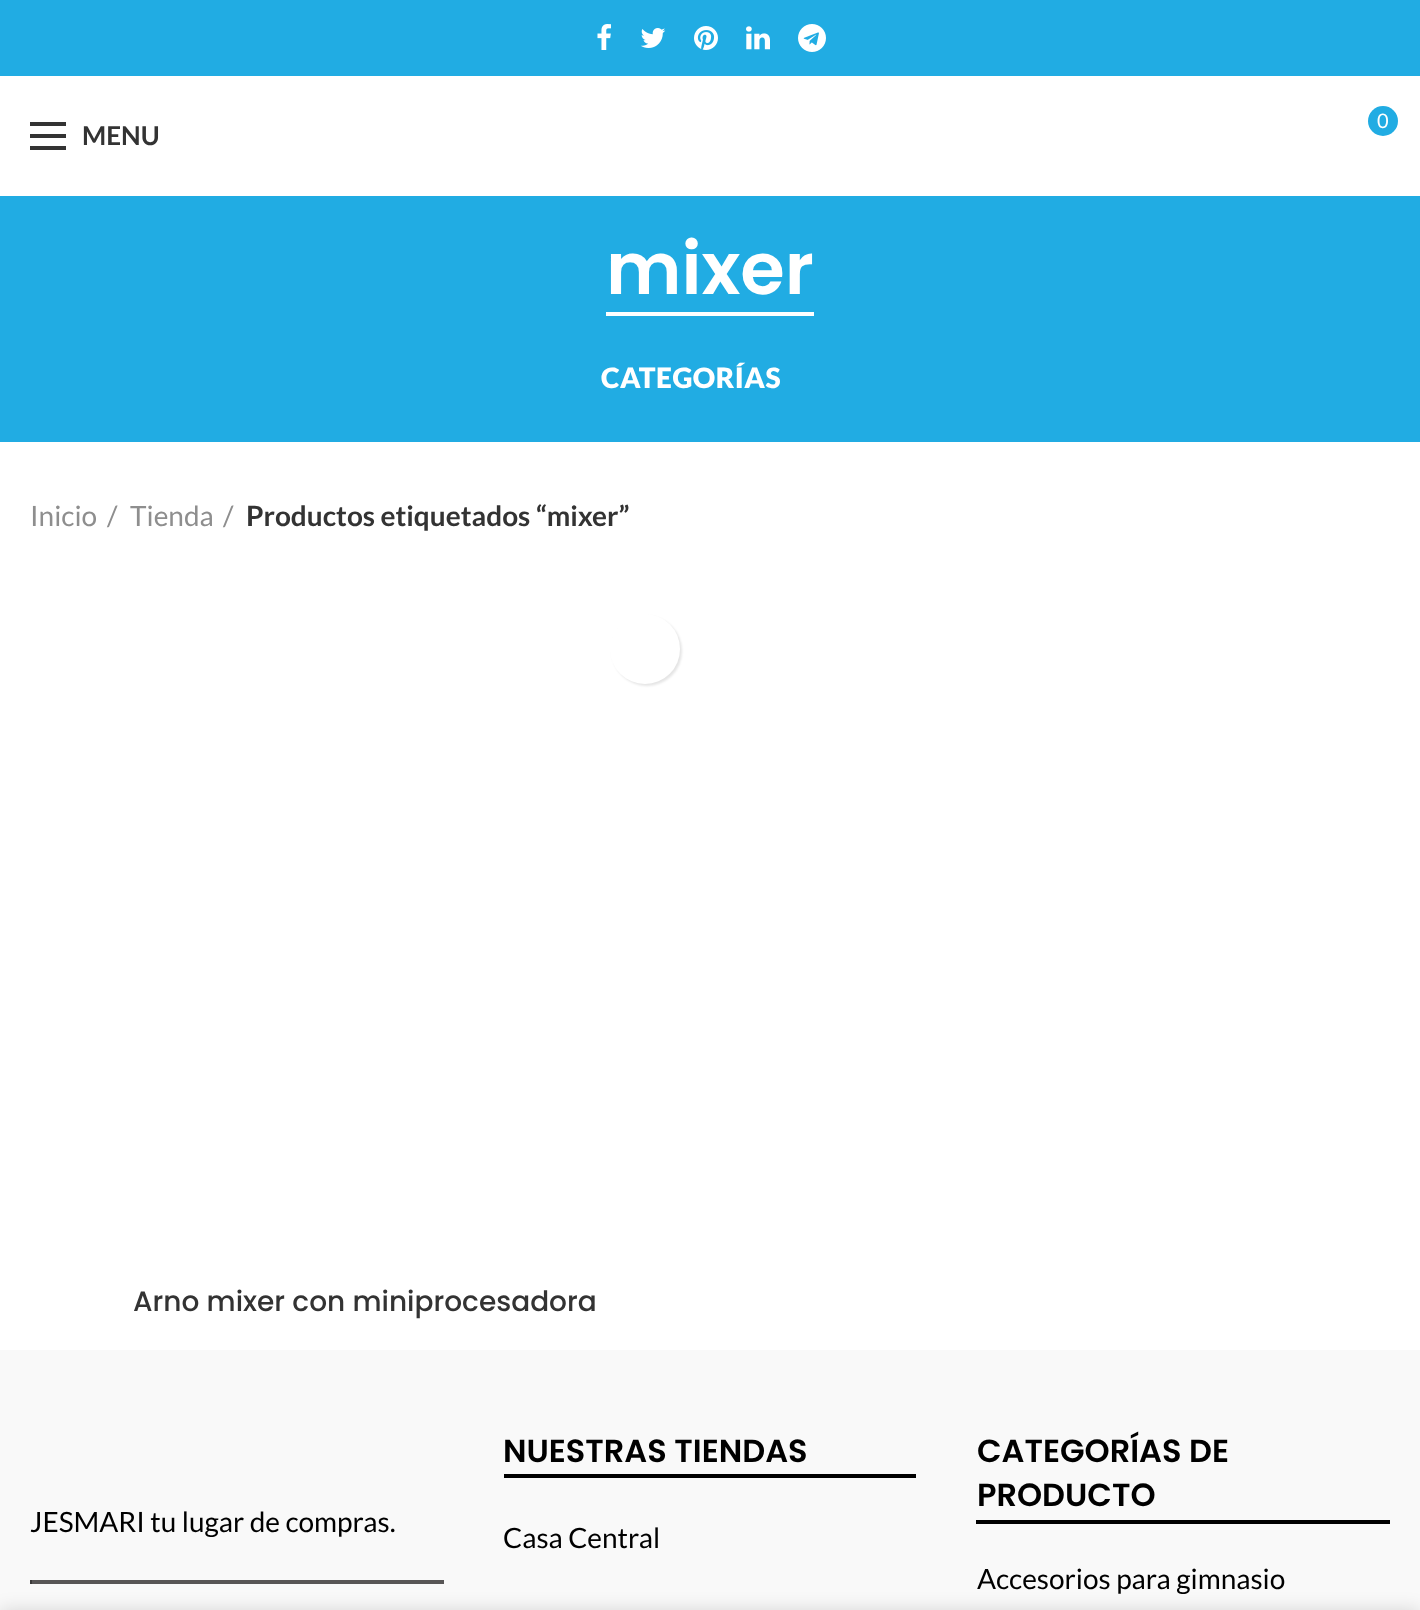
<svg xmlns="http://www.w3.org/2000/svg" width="1420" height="1610">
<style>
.a{font:20px Lato;fill:#fff}
.b{font:bold 26px Lato;fill:#333}
.c{font:600 72px Poppins;fill:#fff}
.d{font:900 28px Lato;letter-spacing:0.5px;fill:#fff}
.e{font:28px Lato;fill:#8e8e8e}
.f{font:bold 28px Lato;fill:#333}
.g{font:500 28px Poppins;fill:#333}
.h{font:28px Lato;fill:#000}
.i{font:600 32px Poppins;fill:#000}
</style>
<rect width="100%" height="100%" fill="#fff"/>
<path fill="#21ace3" d="M0 0h1420v76H0z"/>
<image href="1.png" x="597" y="24" width="14" height="26"/>
<image href="2.png" x="640" y="28" width="26" height="20"/>
<image href="3.png" x="694" y="26" width="24" height="24"/>
<image href="4.png" x="746" y="26" width="24" height="24"/>
<image href="5.png" x="798" y="24" width="28" height="28"/>
<circle fill="#21ace3" cx="1383" cy="121" r="15"/>
<path fill="#333" d="M30 134h36v4H30z"/>
<path fill="#333" d="M30 122h36v4H30z"/>
<path fill="#333" d="M30 146h36v4H30z"/>
<path fill="#21ace3" d="M0 196h1420v246H0z"/>
<path fill="#fff" d="M606 312h208v4H606z"/>
<rect fill="#0000001a" filter="blur(1px)" x="612" y="616" width="70" height="70" rx="35"/>
<circle fill="#fff" cx="645" cy="649" r="35"/>
<path fill="#f9f9f9" d="M0 1350h1420v260H0z"/>
<path fill="#585656" d="M30 1580h414v2H30z"/>
<path fill="#585656" d="M442 1580h2v4H442z"/>
<path fill="#585656" d="M30 1582h414v2H30z"/>
<path fill="#3b3939" d="M30 1580h2v4H30z"/>
<path fill="#000" d="M504 1474h412v4H504z"/>
<path fill="#000" d="M976 1520h414v4H976z"/>
<path fill="#00000024" filter="blur(9px)" d="M0 1610h1420v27H0z"/>
<text class="a" x="1377" y="128">0</text>
<text class="b" x="82" y="145">MENU</text>
<text class="c" x="606" y="294">mixer</text>
<text class="d" x="601" y="388">CATEGORÍAS</text>
<text class="e" x="30" y="526">Inicio</text>
<text class="e" x="107" y="526">/</text>
<text class="e" x="130" y="526">Tienda</text>
<text class="e" x="223" y="526">/</text>
<text class="f" x="246" y="526">Productos etiquetados “mixer”</text>
<text class="g" x="133" y="1311">Arno mixer con miniprocesadora</text>
<text class="h" x="30" y="1532">JESMARI tu lugar de compras.</text>
<text class="i" x="503" y="1462">NUESTRAS TIENDAS</text>
<text class="h" x="503" y="1548">Casa Central</text>
<text class="i" x="977" y="1462">CATEGORÍAS DE</text>
<text class="i" x="977" y="1506">PRODUCTO</text>
<text class="h" x="977" y="1589">Accesorios para gimnasio</text>
</svg>
